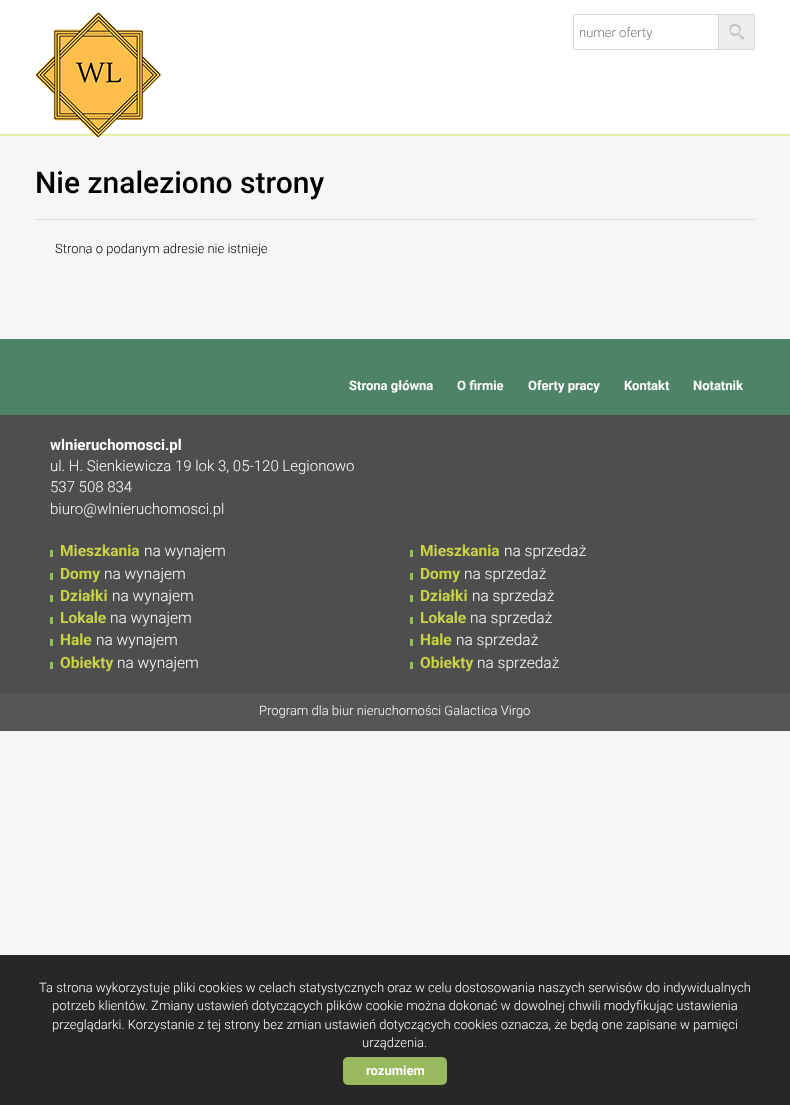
<svg xmlns="http://www.w3.org/2000/svg" width="790" height="1105">
<style>
.a{font:300 13px Roboto;fill:#757575}
.b{font:500 30px Roboto;fill:#000}
.c{font:300 13px Roboto;fill:#000}
.d{font:bold 13px Roboto;fill:#fff}
.e{font:bold 15px Roboto;fill:#fff}
.f{font:300 15px Roboto;fill:#fff}
.g{font:bold 15.5px Roboto;fill:#c9d349}
.h{font:300 15.5px Roboto;fill:#fff}
.i{font:300 13px Roboto;fill:#fff}
</style>
<rect width="100%" height="100%" fill="#f6f6f6"/>
<path fill="#fff" d="M0 0h790v134H0z"/>
<path fill="#e8eda6" d="M0 134h790v2H0z"/>
<image href="1.png" x="35" y="12" width="127" height="126"/>
<path fill="#eee" d="M719 15h35v34H719z"/>
<image href="2.png" x="729" y="24" width="16" height="16"/>
<path fill="none" stroke="#d9d9d9" d="M718.5 14.5h36v35H718.5z"/>
<path fill="none" stroke="#d9d9d9" d="M573.5 14.5h145v35H573.5z"/>
<path fill="#d9d9d9" d="M35 219h720v1H35z"/>
<path fill="#4f8367" d="M0 339h790v76H0z"/>
<path fill="#4e4e4e" d="M0 415h790v278H0z"/>
<path fill="#90c44f" d="M50 550h3v7H50z"/>
<path fill="#90c44f" d="M50 573h3v7H50z"/>
<path fill="#90c44f" d="M50 595h3v7H50z"/>
<path fill="#90c44f" d="M50 617h3v7H50z"/>
<path fill="#90c44f" d="M50 639h3v7H50z"/>
<path fill="#90c44f" d="M50 662h3v7H50z"/>
<path fill="#90c44f" d="M410 550h3v7H410z"/>
<path fill="#90c44f" d="M410 573h3v7H410z"/>
<path fill="#90c44f" d="M410 595h3v7H410z"/>
<path fill="#90c44f" d="M410 617h3v7H410z"/>
<path fill="#90c44f" d="M410 639h3v7H410z"/>
<path fill="#90c44f" d="M410 662h3v7H410z"/>
<path fill="#565656" d="M0 693h790v38H0z"/>
<path fill="#272727" d="M0 955h790v150H0z"/>
<rect fill="#98b95d" x="343" y="1057" width="104" height="28" rx="5"/>
<text class="a" x="579" y="37">numer oferty</text>
<text class="b" x="35" y="193">Nie znaleziono strony</text>
<text class="c" x="55" y="253">Strona o podanym adresie nie istnieje</text>
<text class="d" x="349" y="390">Strona główna</text>
<text class="d" x="457" y="390">O firmie</text>
<text class="d" x="528" y="390">Oferty pracy</text>
<text class="d" x="624" y="390">Kontakt</text>
<text class="d" x="693" y="390">Notatnik</text>
<text class="e" x="50" y="450">wlnieruchomosci.pl</text>
<text class="f" x="50" y="471">ul. H. Sienkiewicza 19 lok 3, 05-120 Legionowo</text>
<text class="f" x="50" y="492">537 508 834</text>
<text class="f" x="50" y="514">biuro@wlnieruchomosci.pl</text>
<text class="g" x="60" y="556">Mieszkania</text>
<text class="h" x="144" y="556">na wynajem</text>
<text class="g" x="60" y="579">Domy</text>
<text class="h" x="104" y="579">na wynajem</text>
<text class="g" x="60" y="601">Działki</text>
<text class="h" x="112" y="601">na wynajem</text>
<text class="g" x="60" y="623">Lokale</text>
<text class="h" x="110" y="623">na wynajem</text>
<text class="g" x="60" y="645">Hale</text>
<text class="h" x="96" y="645">na wynajem</text>
<text class="g" x="60" y="668">Obiekty</text>
<text class="h" x="117" y="668">na wynajem</text>
<text class="g" x="420" y="556">Mieszkania</text>
<text class="h" x="504" y="556">na sprzedaż</text>
<text class="g" x="420" y="579">Domy</text>
<text class="h" x="464" y="579">na sprzedaż</text>
<text class="g" x="420" y="601">Działki</text>
<text class="h" x="472" y="601">na sprzedaż</text>
<text class="g" x="420" y="623">Lokale</text>
<text class="h" x="470" y="623">na sprzedaż</text>
<text class="g" x="420" y="645">Hale</text>
<text class="h" x="456" y="645">na sprzedaż</text>
<text class="g" x="420" y="668">Obiekty</text>
<text class="h" x="477" y="668">na sprzedaż</text>
<text class="i" x="259" y="715">Program dla biur nieruchomości Galactica Virgo</text>
<text class="i" x="39" y="992">Ta strona wykorzystuje pliki cookies w celach statystycznych oraz w celu dostosowania naszych serwisów do indywidualnych</text>
<text class="i" x="52" y="1010">potrzeb klientów. Zmiany ustawień dotyczących plików cookie można dokonać w dowolnej chwili modyfikując ustawienia</text>
<text class="i" x="52" y="1029">przeglądarki. Korzystanie z tej strony bez zmian ustawień dotyczących cookies oznacza, że będą one zapisane w pamięci</text>
<text class="i" x="362" y="1047">urządzenia.</text>
<text class="d" x="366" y="1075">rozumiem</text>
</svg>
